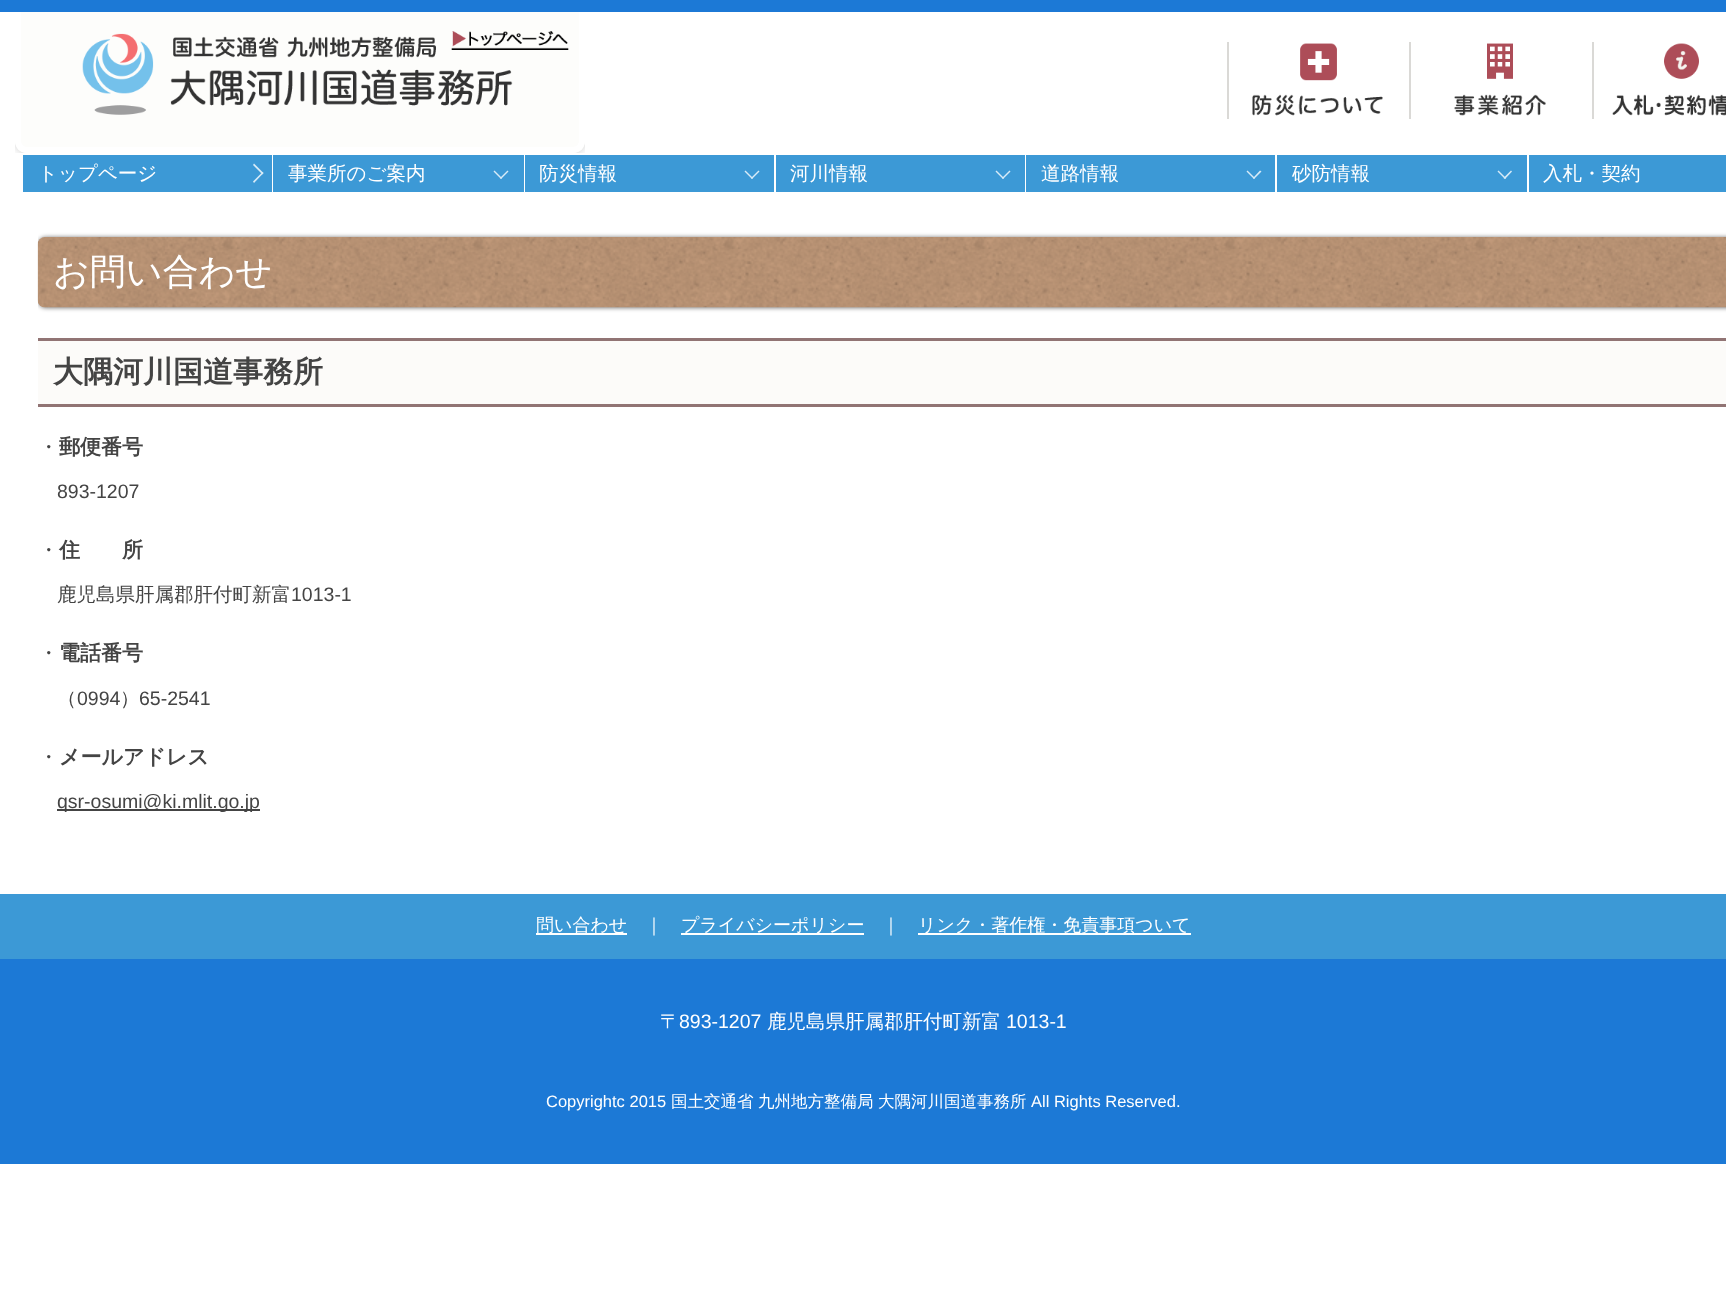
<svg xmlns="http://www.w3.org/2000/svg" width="1726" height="1308">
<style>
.a{font:500 19.5px WenQuanYi Zen Hei;fill:#fff}
.b{font:500 36px WenQuanYi Zen Hei;fill:#fff}
.c{font:bold 30px WenQuanYi Zen Hei;fill:#444}
.d{font:500 21px WenQuanYi Zen Hei;fill:#444}
.e{font:bold 21px WenQuanYi Zen Hei;fill:#444}
.f{font:19.5px Liberation Sans;fill:#444}
.g{font:500 19.5px WenQuanYi Zen Hei;fill:#444}
.h{font:500 18px WenQuanYi Zen Hei;fill:#fff}
.i{font:19.5px Liberation Sans;fill:#fff}
.j{font:16.5px Liberation Sans;fill:#fff}
.k{font:500 16.5px WenQuanYi Zen Hei;fill:#fff}
</style>
<defs>
<clipPath id="clip1"><path d="M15 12h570v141H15z"/></clipPath>
<clipPath id="clip2"><path d="M15 12h570v141H15z"/></clipPath>
<clipPath id="clip3"><path d="M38 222h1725v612H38z"/></clipPath>
</defs>
<rect width="100%" height="100%" fill="#fff"/>
<path fill="#1c79d6" d="M0 0h1726v12H0z"/>
<g clip-path="url(#clip1)">
<rect fill="#00000033" filter="blur(4px)" x="15" width="570" height="153" rx="12"/>
</g>
<path fill="#fdfdfb" d="M15 12h570v129c0 6.5-5.5 12-12 12h-546c-6.5 0-12-5.5-12-12z"/>
<g clip-path="url(#clip2)">
<path fill="#fff" fill-rule="evenodd" d="M15 0h570v141c0 7-5 12-12 12h-546c-7 0-12-5-12-12zm6 0h558v141c0 3-3 6-6 6h-546c-3 0-6-3-6-6z"/>
</g>
<image href="1.png" x="82" y="31" width="487" height="84"/>
<path fill="#dad9d6" d="M1227 42h2v77H1227z"/>
<image href="2.png" x="1252" y="43" width="131" height="73"/>
<path fill="#dad9d6" d="M1409 42h2v77H1409z"/>
<image href="3.png" x="1454" y="43" width="92" height="73"/>
<path fill="#dad9d6" d="M1592 42h2v77H1592z"/>
<image href="4.png" x="1612" y="43" width="114" height="73"/>
<path fill="#3c99d6" d="M23 155h249v37H23z"/>
<path fill="#d8ebf7" d="M254 163.5l9.5 9.5l-1 1.5l-9.5-9.5z"/>
<path fill="#d8ebf7" d="M262.5 172l1 1l-9.5 10l-1-1.5z"/>
<path fill="#3c99d6" d="M273 155h251v37H273z"/>
<path fill="#d8ebf7" d="M507.5 170.5l1 1l-7.5 7.5l-1-1z"/>
<path fill="#d8ebf7" d="M494.5 170.5l7.5 7.5l-1 1l-7.5-7.5z"/>
<path fill="#3c99d6" d="M525 155h249v37H525z"/>
<path fill="#d8ebf7" d="M758.5 170.5l1 1l-7.5 7.5l-1-1z"/>
<path fill="#d8ebf7" d="M745.5 170.5l7.5 7.5l-1 1l-7.5-7.5z"/>
<path fill="#3c99d6" d="M776 155h249v37H776z"/>
<path fill="#d8ebf7" d="M1009.5 170.5l1 1l-7.5 7.5l-1-1z"/>
<path fill="#d8ebf7" d="M996.5 170.5l7.5 7.5l-1 1l-7.5-7.5z"/>
<path fill="#3c99d6" d="M1026 155h249v37H1026z"/>
<path fill="#d8ebf7" d="M1260 170.5l1.5 1l-7.5 7.5l-1-1z"/>
<path fill="#d8ebf7" d="M1247.5 170.5l7.5 7.5l-1 1l-7.5-7.5z"/>
<path fill="#3c99d6" d="M1277 155h250v37H1277z"/>
<path fill="#d8ebf7" d="M1511 170.5l1 1l-7 7.5l-1.5-1z"/>
<path fill="#d8ebf7" d="M1498.5 170.5l7.5 7.5l-1 1l-7.5-7.5z"/>
<path fill="#3c99d6" d="M1529 155h197v37H1529z"/>
<g clip-path="url(#clip3)">
<rect fill="#00000080" filter="blur(2px)" x="38" y="237" width="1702" height="71" rx="8"/>
</g>
<image href="5.png" x="37" y="237" width="1689" height="71"/>
<path fill="#fcfbf9" d="M38 341h1688v63H38z"/>
<path fill="#917474" d="M38 338h1688v3H38z"/>
<path fill="#917474" d="M38 404h1688v3H38z"/>
<path fill="#444" d="M57 809h203v2H57z"/>
<path fill="#3c99d6" d="M0 894h1726v65H0z"/>
<path fill="#fff" d="M536 933h91v2H536z"/>
<path fill="#fff" d="M681 933h183v2H681z"/>
<path fill="#fff" d="M918 933h273v2H918z"/>
<path fill="#1c79d6" d="M0 959h1726v205H0z"/>
<text class="a" x="38" y="180">トップページ</text>
<text class="a" x="288" y="180">事業所のご案内</text>
<text class="a" x="539" y="180">防災情報</text>
<text class="a" x="790" y="180">河川情報</text>
<text class="a" x="1041" y="180">道路情報</text>
<text class="a" x="1292" y="180">砂防情報</text>
<text class="a" x="1543" y="180">入札・契約</text>
<text class="b" x="53" y="284">お問い合わせ</text>
<text class="c" x="53" y="382">大隅河川国道事務所</text>
<text class="d" x="38" y="454">・</text>
<text class="e" x="59" y="454">郵便番号</text>
<text class="f" x="57" y="498">893-1207</text>
<text class="d" x="38" y="557">・</text>
<text class="e" x="59" y="557">住　　所</text>
<text class="g" x="57" y="601">鹿児島県肝属郡肝付町新富</text>
<text class="f" x="291" y="601">1013-1</text>
<text class="d" x="38" y="660">・</text>
<text class="e" x="59" y="660">電話番号</text>
<text class="g" x="57" y="705">（</text>
<text class="f" x="77" y="705">0994</text>
<text class="g" x="120" y="705">）</text>
<text class="f" x="139" y="705">65-2541</text>
<text class="d" x="38" y="764">・</text>
<text class="e" x="59" y="764">メールアドレス</text>
<text class="f" x="57" y="808">qsr-osumi@ki.mlit.go.jp</text>
<text class="h" x="536" y="931">問い合わせ</text>
<text class="h" x="645" y="931">｜</text>
<text class="h" x="681" y="931">プライバシーポリシー</text>
<text class="h" x="882" y="931">｜</text>
<text class="h" x="918" y="931">リンク・著作権・免責事項ついて</text>
<text class="a" x="660" y="1028">〒</text>
<text class="i" x="679" y="1028">893-1207</text>
<text class="a" x="767" y="1028">鹿児島県肝属郡肝付町新富</text>
<text class="i" x="1006" y="1028">1013-1</text>
<text class="j" x="546" y="1107">Copyrightc 2015</text>
<text class="k" x="671" y="1107">国土交通省</text>
<text class="k" x="758" y="1107">九州地方整備局</text>
<text class="k" x="878" y="1107">大隅河川国道事務所</text>
<text class="j" x="1031" y="1107">All Rights Reserved.</text>
</svg>
